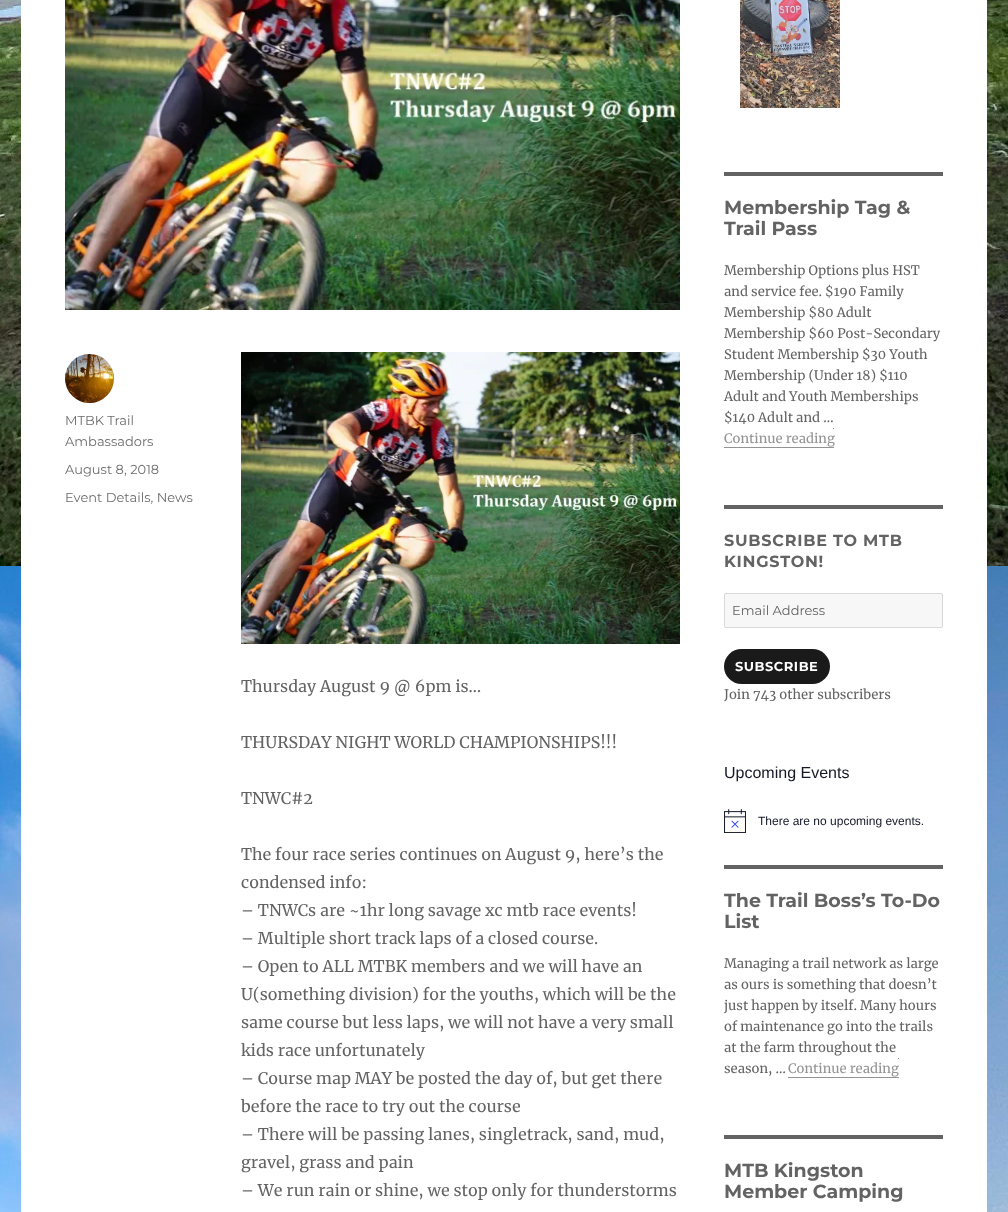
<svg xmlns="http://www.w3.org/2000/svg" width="1008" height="1212">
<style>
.a{font:100 13px 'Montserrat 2';fill:#6d6d6d}
.b{font:16px Merriweather;fill:#636363}
.c{font:100 19px Montserrat;fill:#636363}
.d{font:13px Merriweather;fill:#636363}
.e{font:13px Merriweather;fill:#939393}
.f{font:100 16px Montserrat;letter-spacing:0.75px;fill:#636363}
.g{font:100 13px 'Montserrat 2';fill:#636363}
.h{font:100 13px Montserrat;letter-spacing:0.5px;fill:#fff}
.i{font:16px Liberation Sans;fill:#141827}
.j{font:12px Liberation Sans;fill:#141827}
</style>
<rect width="100%" height="100%" fill="#fff"/>
<image href="1.png" x="0" y="0" width="1008" height="1212"/>
<path fill="#fff" d="M21 0h966v1212H21z"/>
<image href="2.png" x="65" y="0" width="615" height="310"/>
<image href="3.png" x="65" y="354" width="49" height="49"/>
<image href="4.png" x="241" y="352" width="439" height="292"/>
<image href="5.png" x="740" y="0" width="100" height="108"/>
<path fill="#636363" d="M724 172h219v4H724z"/>
<path fill="#939393" d="M724 447h110v1H724z"/>
<path fill="#939393" d="M833 428h1v1H833z"/>
<path fill="#636363" d="M724 505h219v4H724z"/>
<rect fill="#f7f7f7" stroke="#d9d9d9" x="724.5" y="593.5" width="218" height="34" rx="1.5"/>
<rect fill="#1a1a1a" x="724" y="649" width="106" height="35" rx="17.5"/>
<image href="6.png" x="724" y="809" width="22" height="24"/>
<path fill="#636363" d="M724 865h219v4H724z"/>
<path fill="#939393" d="M788 1077h111v1H788z"/>
<path fill="#939393" d="M898 1058h1v1H898z"/>
<path fill="#636363" d="M724 1135h219v4H724z"/>
<text class="a" x="65" y="425">MTBK Trail</text>
<text class="a" x="65" y="446">Ambassadors</text>
<text class="a" x="65" y="474">August 8, 2018</text>
<text class="a" x="65" y="502">Event Details, News</text>
<text class="b" x="241" y="692">Thursday August 9 @ 6pm is…</text>
<text class="b" x="241" y="748">THURSDAY NIGHT WORLD CHAMPIONSHIPS!!!</text>
<text class="b" x="241" y="804">TNWC#2</text>
<text class="b" x="241" y="860">The four race series continues on August 9, here’s the</text>
<text class="b" x="241" y="888">condensed info:</text>
<text class="b" x="241" y="916">– TNWCs are ~1hr long savage xc mtb race events!</text>
<text class="b" x="241" y="944">– Multiple short track laps of a closed course.</text>
<text class="b" x="241" y="972">– Open to ALL MTBK members and we will have an</text>
<text class="b" x="241" y="1000">U(something division) for the youths, which will be the</text>
<text class="b" x="241" y="1028">same course but less laps, we will not have a very small</text>
<text class="b" x="241" y="1056">kids race unfortunately</text>
<text class="b" x="241" y="1084">– Course map MAY be posted the day of, but get there</text>
<text class="b" x="241" y="1112">before the race to try out the course</text>
<text class="b" x="241" y="1140">– There will be passing lanes, singletrack, sand, mud,</text>
<text class="b" x="241" y="1168">gravel, grass and pain</text>
<text class="b" x="241" y="1196">– We run rain or shine, we stop only for thunderstorms</text>
<text class="c" x="724" y="214">Membership Tag &amp;</text>
<text class="c" x="724" y="235">Trail Pass</text>
<text class="d" x="724" y="275">Membership Options plus HST</text>
<text class="d" x="724" y="296">and service fee. $190 Family</text>
<text class="d" x="724" y="317">Membership $80 Adult</text>
<text class="d" x="724" y="338">Membership $60 Post-Secondary</text>
<text class="d" x="724" y="359">Student Membership $30 Youth</text>
<text class="d" x="724" y="380">Membership (Under 18) $110</text>
<text class="d" x="724" y="401">Adult and Youth Memberships</text>
<text class="d" x="724" y="422">$140 Adult and …</text>
<text class="e" x="724" y="443">Continue reading</text>
<text class="f" x="724" y="546">SUBSCRIBE TO MTB</text>
<text class="f" x="724" y="567">KINGSTON!</text>
<text class="g" x="732" y="615">Email Address</text>
<text class="h" x="735" y="671">SUBSCRIBE</text>
<text class="d" x="724" y="699">Join 743 other subscribers</text>
<text class="i" x="724" y="778">Upcoming Events</text>
<text class="j" x="758" y="825">There are no upcoming events.</text>
<text class="c" x="724" y="907">The Trail Boss’s To-Do</text>
<text class="c" x="724" y="928">List</text>
<text class="d" x="724" y="968">Managing a trail network as large</text>
<text class="d" x="724" y="989">as ours is something that doesn’t</text>
<text class="d" x="724" y="1010">just happen by itself. Many hours</text>
<text class="d" x="724" y="1031">of maintenance go into the trails</text>
<text class="d" x="724" y="1052">at the farm throughout the</text>
<text class="d" x="724" y="1073">season, …</text>
<text class="e" x="788" y="1073">Continue reading</text>
<text class="c" x="724" y="1177">MTB Kingston</text>
<text class="c" x="724" y="1198">Member Camping</text>
</svg>
